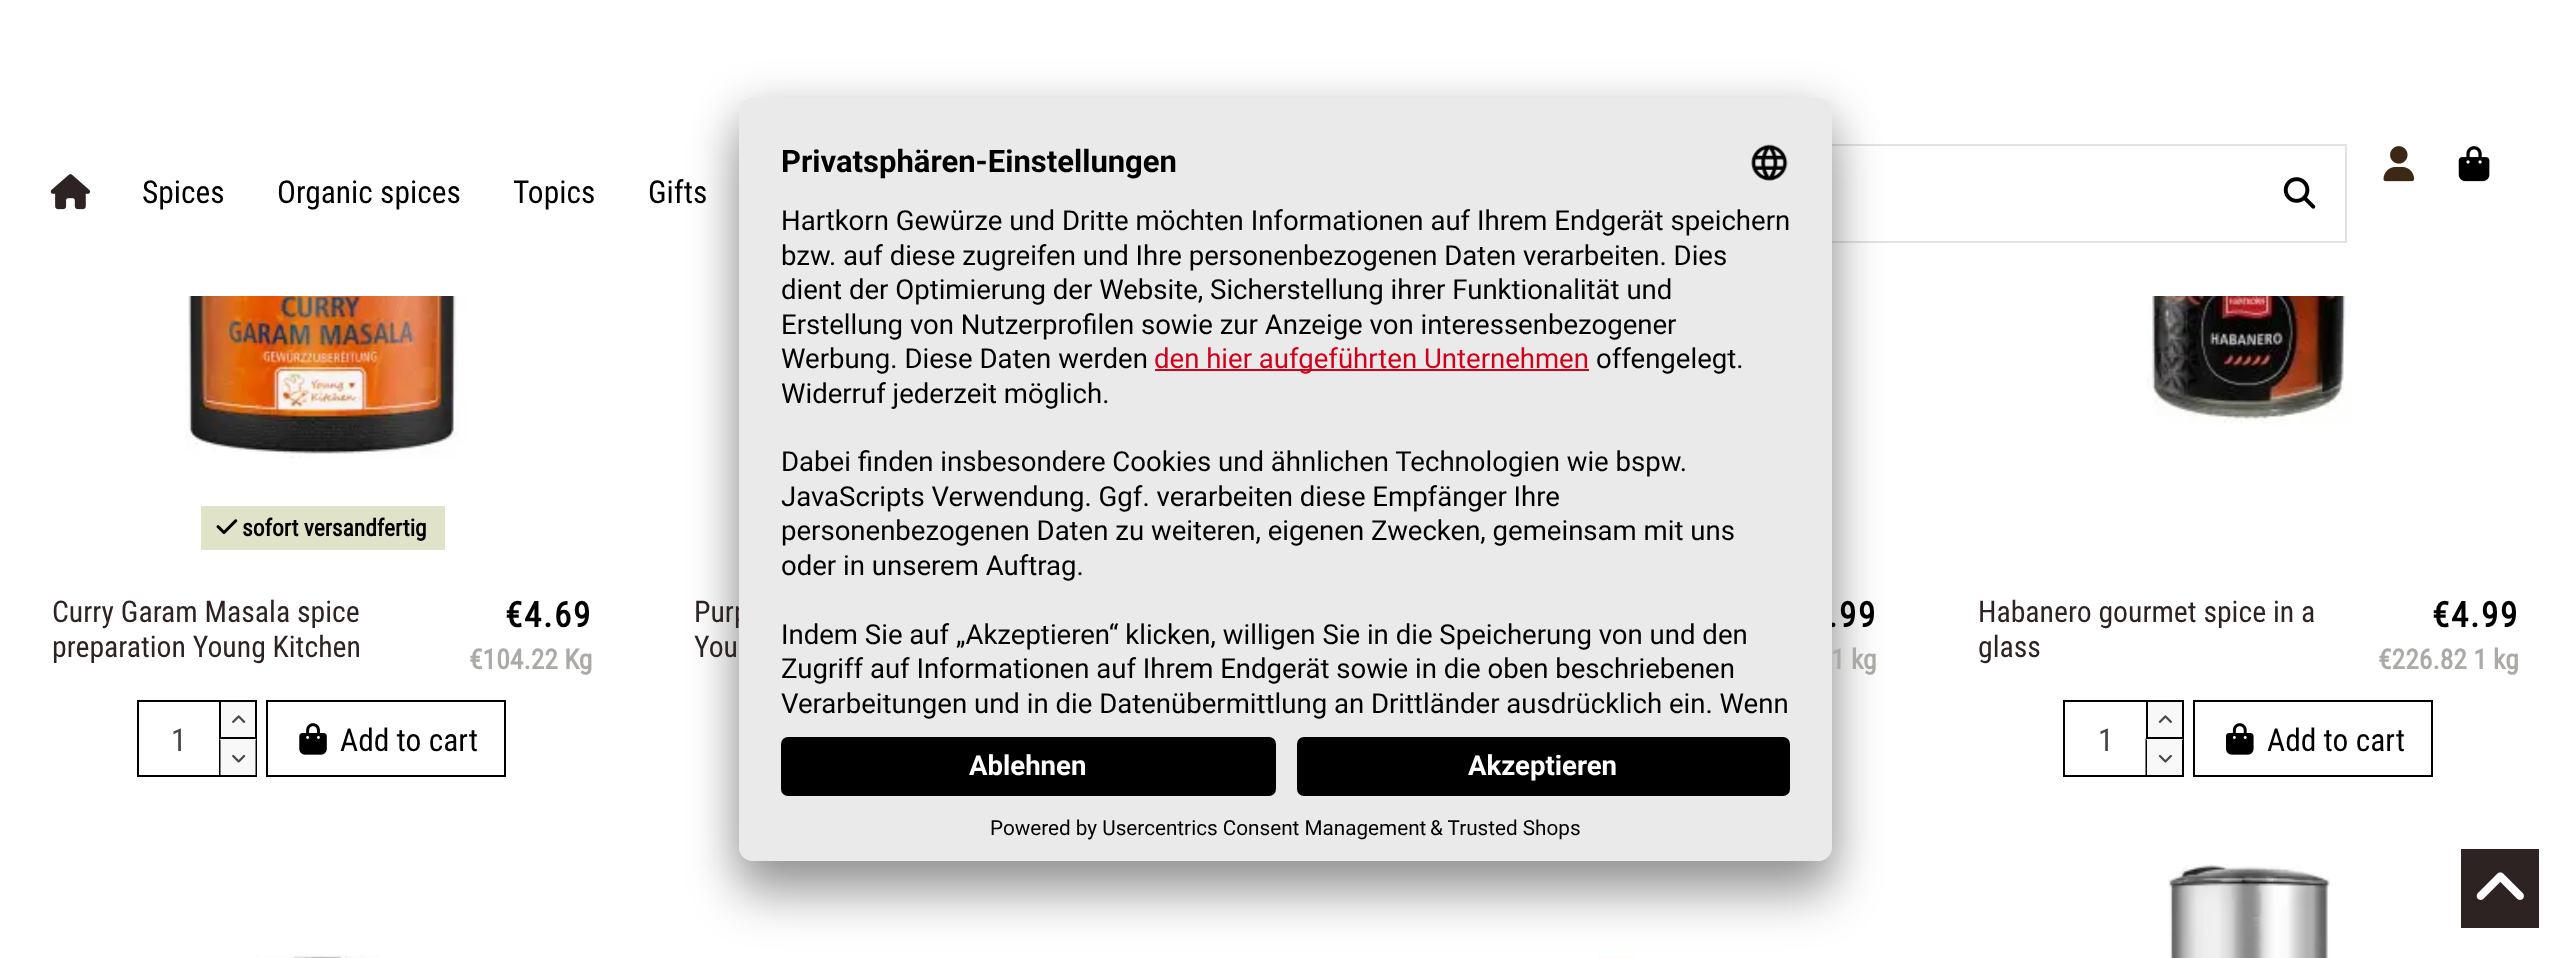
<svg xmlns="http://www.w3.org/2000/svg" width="2570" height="958">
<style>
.a{font:31.5px Roboto Condensed;fill:#000}
.b{font:bold 23.5px Roboto Condensed;fill:#000}
.c{font:29.75px Roboto Condensed;fill:#2e2323}
.d{font:bold 35px Roboto Condensed;letter-spacing:1.75px;fill:#000}
.e{font:bold 27.55px Roboto Condensed;fill:#acaaa6}
.f{font:31.5px Roboto Condensed;fill:#484848}
.g{font:bold 31px Roboto;fill:#000}
.h{font:27.55px Roboto;fill:#000}
.i{font:27.55px Roboto;fill:#d0021b}
.j{font:20.7px Roboto;fill:#000}
.k{font:bold 27.55px Roboto;fill:#fff}
</style>
<rect width="100%" height="100%" fill="#fff"/>
<path fill="none" stroke="#e3e3e3" stroke-width="2" d="M1592 145h754v97H1592z"/>
<image href="16.png" x="1598" y="949" width="37" height="9"/>
<rect fill="#0000004d" filter="blur(24.5px)" x="739" y="133" width="1093" height="763" rx="14"/>
<rect fill="#00000038" filter="blur(23px)" x="739" y="107" width="1093" height="763" rx="14"/>
<image href="2.png" x="50" y="174" width="41" height="36"/>
<image href="3.png" x="2283" y="177" width="33" height="32"/>
<image href="4.png" x="2383" y="146" width="32" height="36"/>
<image href="5.png" x="2458" y="146" width="32" height="36"/>
<image href="6.png" x="185" y="296" width="281" height="163"/>
<path fill="#e0e3c8" d="M201 506h244v44H201z"/>
<image href="7.png" x="216" y="519" width="22" height="15"/>
<path fill="none" stroke="#000" stroke-width="2" d="M138 701h83v75H138z"/>
<path fill="#f8f8f8" stroke="#000" stroke-width="2" d="M220 701h36v37H220z"/>
<image href="8.png" x="232" y="715" width="14" height="8"/>
<path fill="#f8f8f8" d="M219 739h38v36H219z"/>
<path fill="#000" d="M257 738.5v38.5l-1.5-2v-35z"/>
<path fill="#000" d="M219 775h38v2H219z"/>
<path fill="#000" d="M219 777v-38.5l1.5 1.5v35z"/>
<image href="9.png" x="232" y="754" width="14" height="9"/>
<path fill="none" stroke="#000" stroke-width="2" d="M267 701h238v75H267z"/>
<image href="10.png" x="299" y="723" width="28" height="32"/>
<image href="11.png" x="2147" y="296" width="206" height="131"/>
<path fill="none" stroke="#000" stroke-width="2" d="M2064 701h84v75H2064z"/>
<path fill="#f8f8f8" stroke="#000" stroke-width="2" d="M2147 701h36v37H2147z"/>
<image href="12.png" x="2158" y="715" width="14" height="8"/>
<path fill="#f8f8f8" d="M2146 739h38v36H2146z"/>
<path fill="#000" d="M2184 738.5v38.5l-2-2v-35z"/>
<path fill="#000" d="M2146 775h38v2H2146z"/>
<path fill="#000" d="M2145.5 777v-38.5l1.5 1.5v35z"/>
<image href="13.png" x="2158" y="754" width="14" height="9"/>
<path fill="none" stroke="#000" stroke-width="2" d="M2194 701h238v75H2194z"/>
<image href="14.png" x="2226" y="723" width="28" height="32"/>
<image href="15.png" x="256" y="955" width="125" height="3"/>
<image href="17.png" x="2168" y="864" width="162" height="94"/>
<path fill="#2e2323" d="M2461 849h78v79H2461z"/>
<image href="18.png" x="2476" y="872" width="48" height="28"/>
<text class="a" x="142" y="203">Spices</text>
<text class="a" x="277" y="203">Organic spices</text>
<text class="a" x="513" y="203">Topics</text>
<text class="a" x="648" y="203">Gifts</text>
<text class="b" x="242" y="536">sofort versandfertig</text>
<text class="c" x="52" y="622">Curry Garam Masala spice</text>
<text class="c" x="52" y="657">preparation Young Kitchen</text>
<text class="d" x="505" y="627">€4.69</text>
<text class="e" x="469" y="669">€104.22 Kg</text>
<text class="f" x="171" y="751">1</text>
<text class="a" x="340" y="751">Add to cart</text>
<text class="c" x="694" y="622">Purp</text>
<text class="c" x="694" y="657">You</text>
<text class="d" x="1828" y="627">.99</text>
<rect fill="#ebeaea" x="739" y="98" width="1093" height="763" rx="14"/>
<image href="1.png" x="1751" y="144" width="37" height="37"/>
<text class="g" x="781" y="172">Privatsphären-Einstellungen</text>
<text class="h" x="781" y="713">Verarbeitungen und in die Datenübermittlung an Drittländer ausdrücklich ein. Wenn</text>
<text class="h" x="781" y="678">Zugriff auf Informationen auf Ihrem Endgerät sowie in die oben beschriebenen</text>
<text class="h" x="781" y="644">Indem Sie auf „Akzeptieren“ klicken, willigen Sie in die Speicherung von und den</text>
<text class="h" x="781" y="575">oder in unserem Auftrag.</text>
<text class="h" x="781" y="540">personenbezogenen Daten zu weiteren, eigenen Zwecken, gemeinsam mit uns</text>
<text class="h" x="781" y="506">JavaScripts Verwendung. Ggf. verarbeiten diese Empfänger Ihre</text>
<text class="h" x="781" y="471">Dabei finden insbesondere Cookies und ähnlichen Technologien wie bspw.</text>
<text class="h" x="781" y="403">Widerruf jederzeit möglich.</text>
<text class="h" x="1596" y="368">offengelegt.</text>
<path fill="#d0021b" d="M1155 369h434v2H1155z"/>
<text class="i" x="1154" y="368">den hier aufgeführten Unternehmen</text>
<text class="h" x="781" y="368">Werbung. Diese Daten werden</text>
<text class="h" x="781" y="334">Erstellung von Nutzerprofilen sowie zur Anzeige von interessenbezogener</text>
<text class="h" x="781" y="299">dient der Optimierung der Website, Sicherstellung ihrer Funktionalität und</text>
<text class="h" x="781" y="265">bzw. auf diese zugreifen und Ihre personenbezogenen Daten verarbeiten. Dies</text>
<text class="h" x="781" y="230">Hartkorn Gewürze und Dritte möchten Informationen auf Ihrem Endgerät speichern</text>
<path fill="#ebeaea" d="M739 723h1093v124c0 7.5-6.5 14-14 14h-1065c-7.5 0-14-6.5-14-14z"/>
<text class="j" x="1430" y="835">&amp; Trusted Shops</text>
<text class="j" x="990" y="835">Powered by Usercentrics Consent Management</text>
<rect fill="#000" x="1297" y="737" width="493" height="59" rx="7"/>
<text class="k" x="1468" y="775">Akzeptieren</text>
<rect fill="#000" x="781" y="737" width="495" height="59" rx="7"/>
<text class="k" x="969" y="775">Ablehnen</text>
<text class="e" x="1831" y="669">1 kg</text>
<text class="c" x="1978" y="622">Habanero gourmet spice in a</text>
<text class="c" x="1978" y="657">glass</text>
<text class="d" x="2432" y="627">€4.99</text>
<text class="e" x="2378" y="669">€226.82 1 kg</text>
<text class="f" x="2098" y="751">1</text>
<text class="a" x="2267" y="751">Add to cart</text>
</svg>
